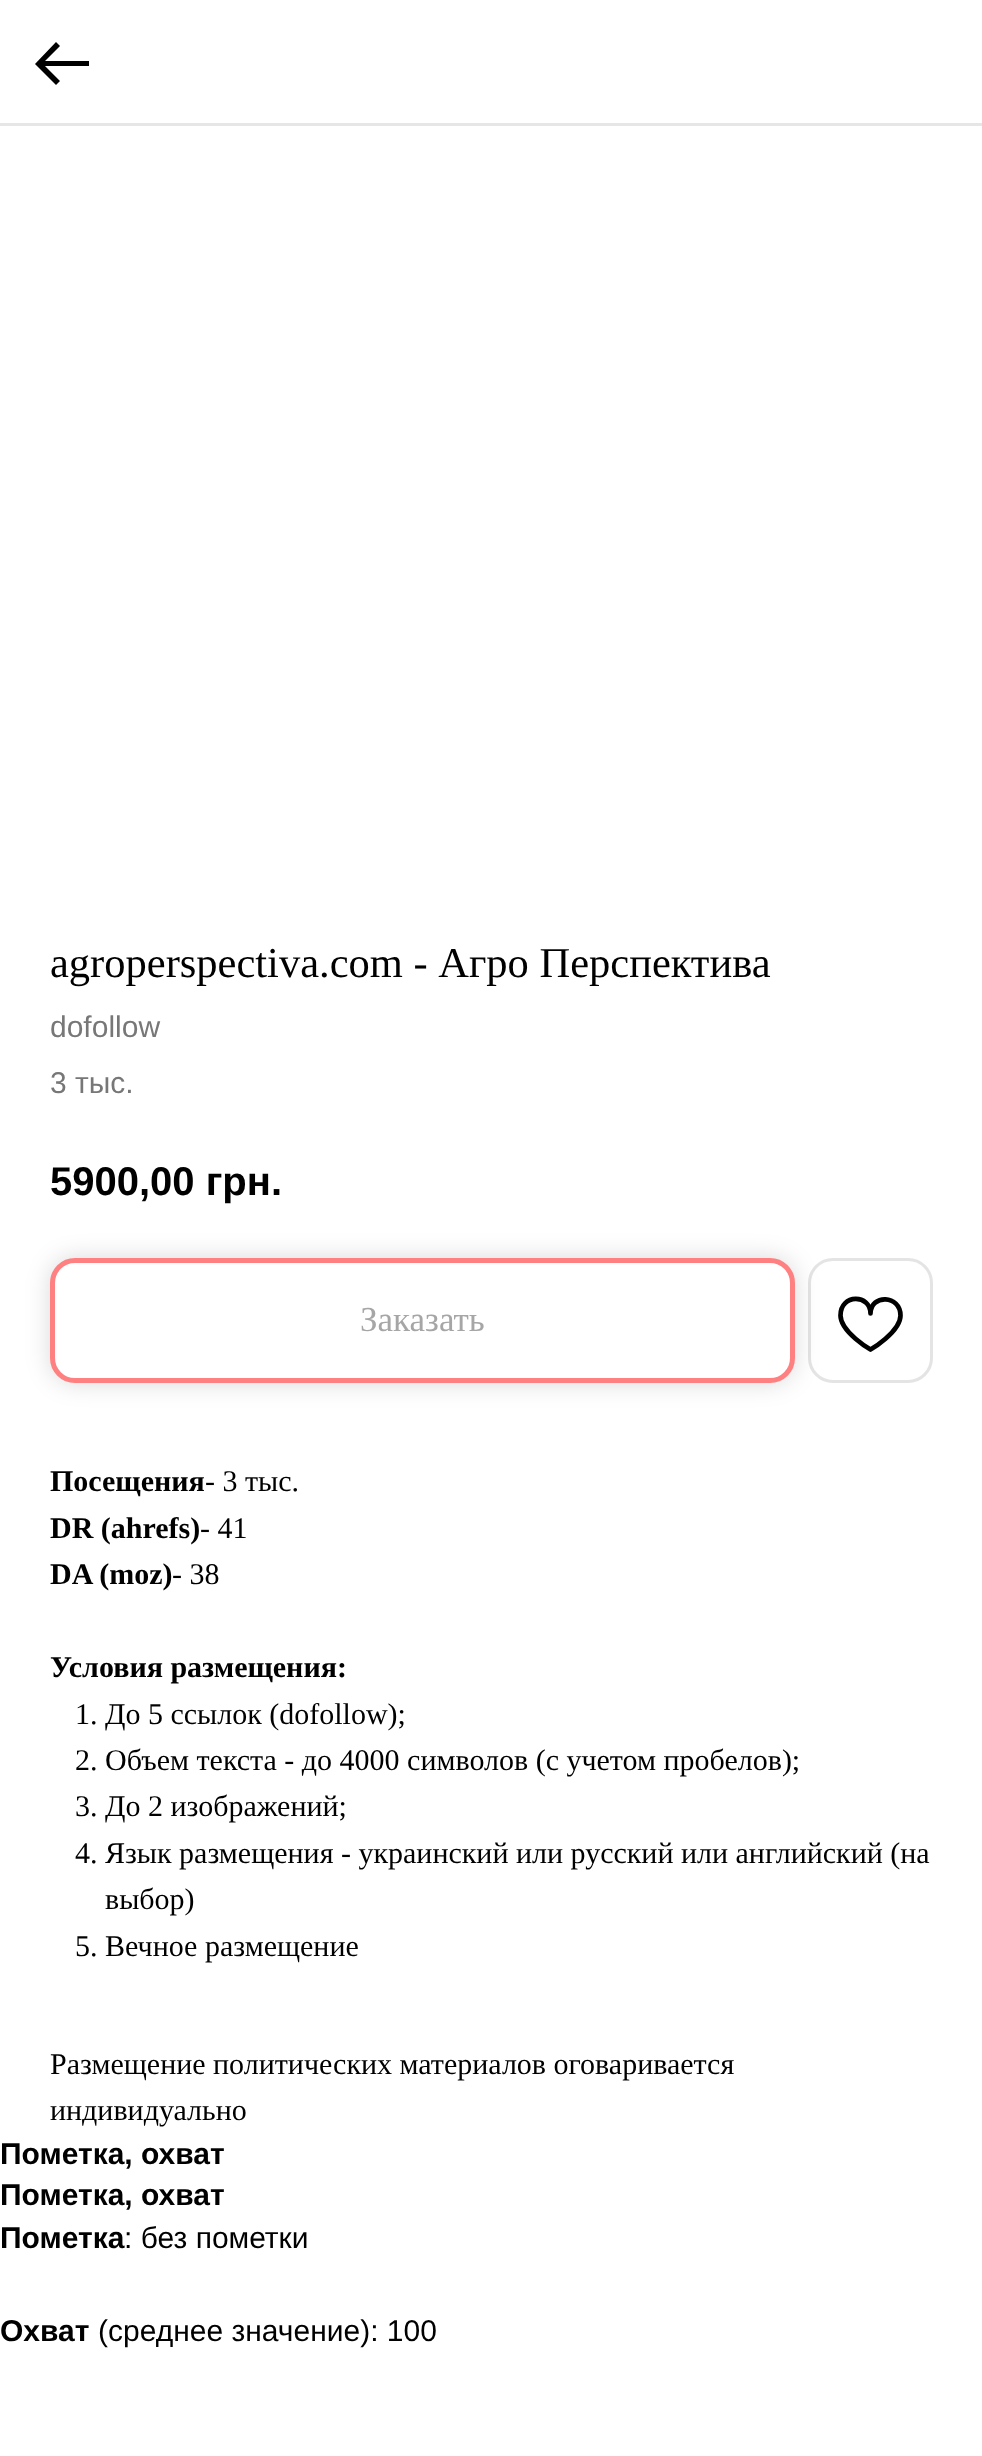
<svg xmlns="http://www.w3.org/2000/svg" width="982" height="2456">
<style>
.a{font:42.5px Liberation Serif;fill:#000}
.b{font:30px Liberation Sans;fill:#777}
.c{font:bold 40px Liberation Sans;fill:#000}
.d{font:35px Liberation Serif;fill:#a6a6a6}
.e{font:bold 30px Liberation Serif;fill:#000}
.f{font:30px Liberation Serif;fill:#000}
.g{font:bold 30px Liberation Sans;fill:#000}
.h{font:30px Liberation Sans;fill:#000}
</style>
<rect width="100%" height="100%" fill="#fff"/>
<path fill="#e6e6e6" d="M0 123h982v3H0z"/>
<path fill="#000" d="M56 42l4 4l-15 15h44v5h-44l15 15l-4 4l-21-21z"/>
<rect fill="none" stroke="#e4e4e4" stroke-width="3" x="809.5" y="1259.5" width="122" height="122" rx="23.5"/>
<rect fill="#00000026" filter="blur(12.5px)" x="50" y="1258" width="745" height="125" rx="25"/>
<rect fill="#fff" stroke="#ff8080" stroke-width="5" x="52.5" y="1260.5" width="740" height="120" rx="22.5"/>
<path fill="none" stroke="#000" stroke-width="4.7" stroke-linejoin="round" d="M900.5 1315.5c0 16.5-30 34-30 34c0 0-30-17.5-30-34c0-22 30-21.5 30-2c0-19.5 30-19 30 2z"/>
<text class="a" x="50" y="977">agroperspectiva.com - Агро Перспектива</text>
<text class="b" x="50" y="1037">dofollow</text>
<text class="b" x="50" y="1093">3 тыс.</text>
<text class="c" x="50" y="1195">5900,00 грн.</text>
<text class="d" x="360" y="1331">Заказать</text>
<text class="e" x="50" y="1491">Посещения</text>
<text class="f" x="205" y="1491">- 3 тыс.</text>
<text class="e" x="50" y="1538">DR (ahrefs)</text>
<text class="f" x="200" y="1538">- 41</text>
<text class="e" x="50" y="1584">DA (moz)</text>
<text class="f" x="172" y="1584">- 38</text>
<text class="e" x="50" y="1677">Условия размещения:</text>
<text class="f" x="75" y="1724">1. До 5 ссылок (dofollow);</text>
<text class="f" x="75" y="1770">2. Объем текста - до 4000 символов (с учетом пробелов);</text>
<text class="f" x="75" y="1816">3. До 2 изображений;</text>
<text class="f" x="75" y="1863">4. Язык размещения - украинский или русский или английский (на</text>
<text class="f" x="105" y="1909">выбор)</text>
<text class="f" x="75" y="1956">5. Вечное размещение</text>
<text class="f" x="50" y="2074">Размещение политических материалов оговаривается</text>
<text class="f" x="50" y="2120">индивидуально</text>
<text class="g" x="0" y="2164">Пометка, охват</text>
<text class="g" x="0" y="2205">Пометка, охват</text>
<text class="g" x="0" y="2248">Пометка</text>
<text class="h" x="124" y="2248">: без пометки</text>
<text class="g" x="0" y="2341">Охват</text>
<text class="h" x="98" y="2341">(среднее значение): 100</text>
</svg>
